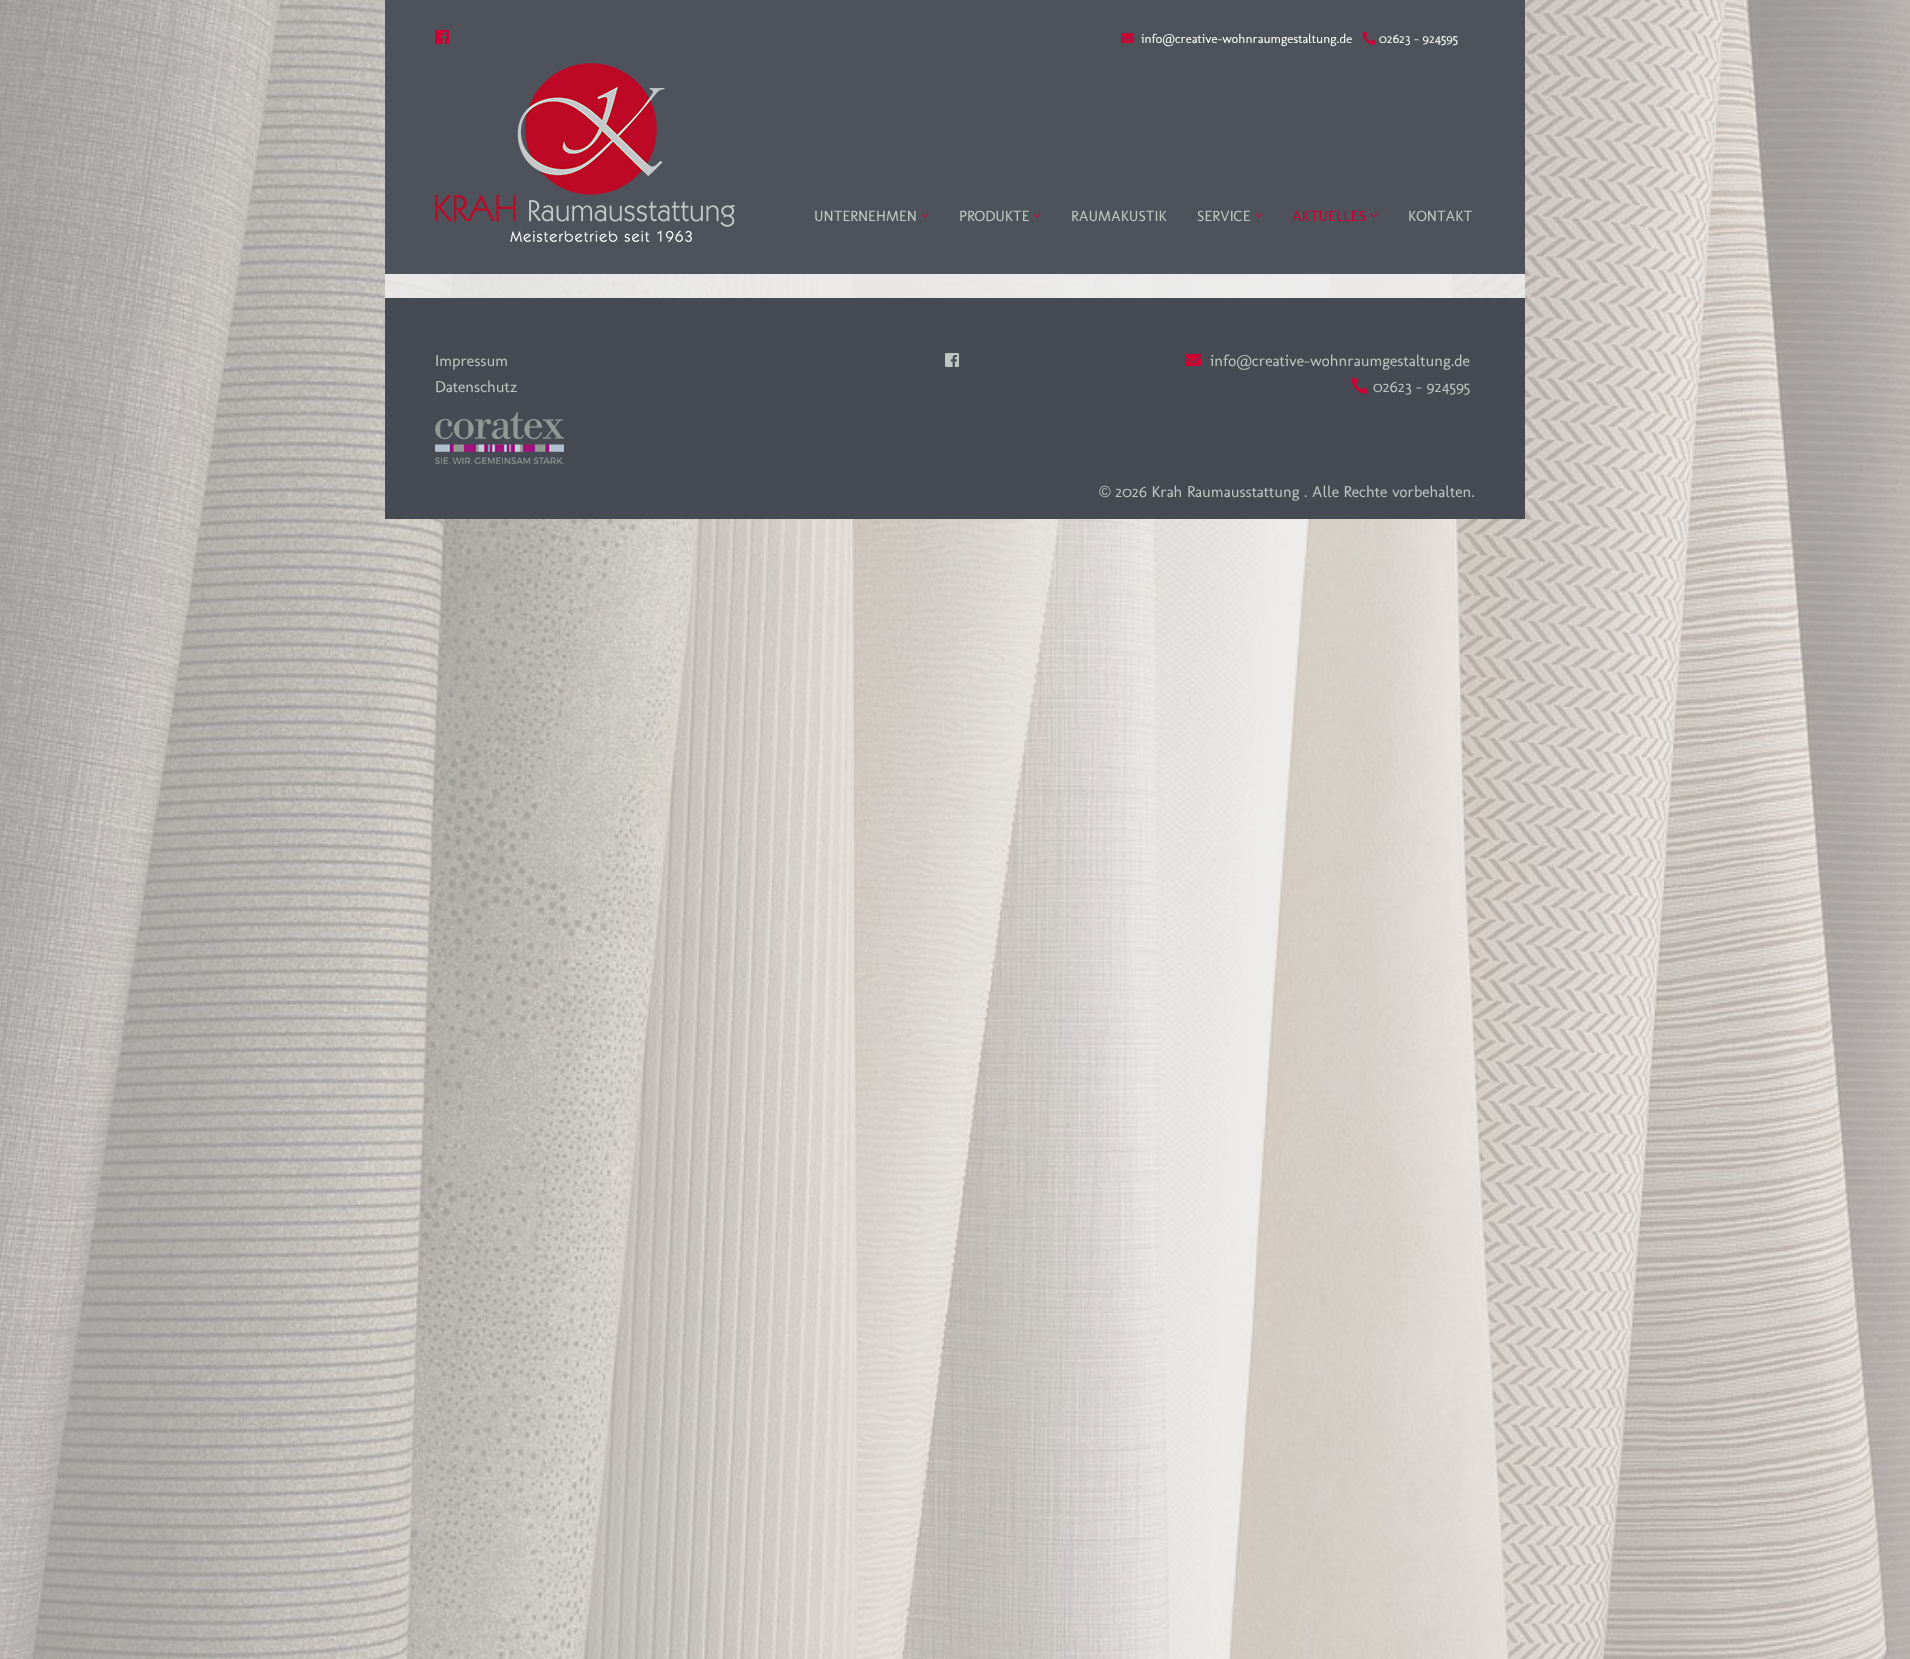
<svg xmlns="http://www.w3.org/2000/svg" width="1910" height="1659">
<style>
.a{font:13px Molengo;fill:#fff}
.b{font:15px Molengo;fill:#bcc7c1}
.c{font:15px Molengo;fill:#c03}
.d{font:16px Molengo;fill:#bcc7c1}
.e{font:16px Liberation Sans;fill:#bcc7c1}
</style>
<rect width="100%" height="100%" fill="#e5e3e4"/>
<image href="1.png" x="0" y="0" width="1910" height="1659"/>
<path fill="#edededd9" d="M385 0h1140v298H385z"/>
<path fill="#464b53f2" d="M385 0h1140v274H385z"/>
<image href="2.png" x="435" y="30" width="14" height="14"/>
<image href="3.png" x="1121" y="33" width="13" height="10"/>
<image href="4.png" x="1362" y="31" width="14" height="14"/>
<image href="5.png" x="435" y="63" width="300" height="179"/>
<image href="6.png" x="921" y="213" width="8" height="5"/>
<image href="7.png" x="1033" y="213" width="8" height="5"/>
<image href="8.png" x="1255" y="213" width="8" height="5"/>
<image href="9.png" x="1370" y="213" width="8" height="5"/>
<path fill="#464b53" d="M385 298h1140v221H385z"/>
<image href="10.png" x="945" y="353" width="14" height="14"/>
<image href="11.png" x="1185" y="354" width="16" height="12"/>
<image href="12.png" x="1351" y="377" width="17" height="17"/>
<image href="13.png" x="435" y="412" width="129" height="52"/>
<text class="a" x="1141" y="43">info@creative-wohnraumgestaltung.de</text>
<text class="a" x="1379" y="43">02623 - 924595</text>
<text class="b" x="814" y="221">UNTERNEHMEN</text>
<text class="b" x="959" y="221">PRODUKTE</text>
<text class="b" x="1071" y="221">RAUMAKUSTIK</text>
<text class="b" x="1197" y="221">SERVICE</text>
<text class="c" x="1292" y="221">AKTUELLES</text>
<text class="b" x="1408" y="221">KONTAKT</text>
<text class="d" x="435" y="366">Impressum</text>
<text class="d" x="435" y="392">Datenschutz</text>
<text class="d" x="1210" y="366">info@creative-wohnraumgestaltung.de</text>
<text class="d" x="1373" y="392">02623 - 924595</text>
<text class="e" x="1099" y="497">©</text>
<text class="d" x="1115" y="497">2026 Krah Raumausstattung . Alle Rechte vorbehalten.</text>
</svg>
